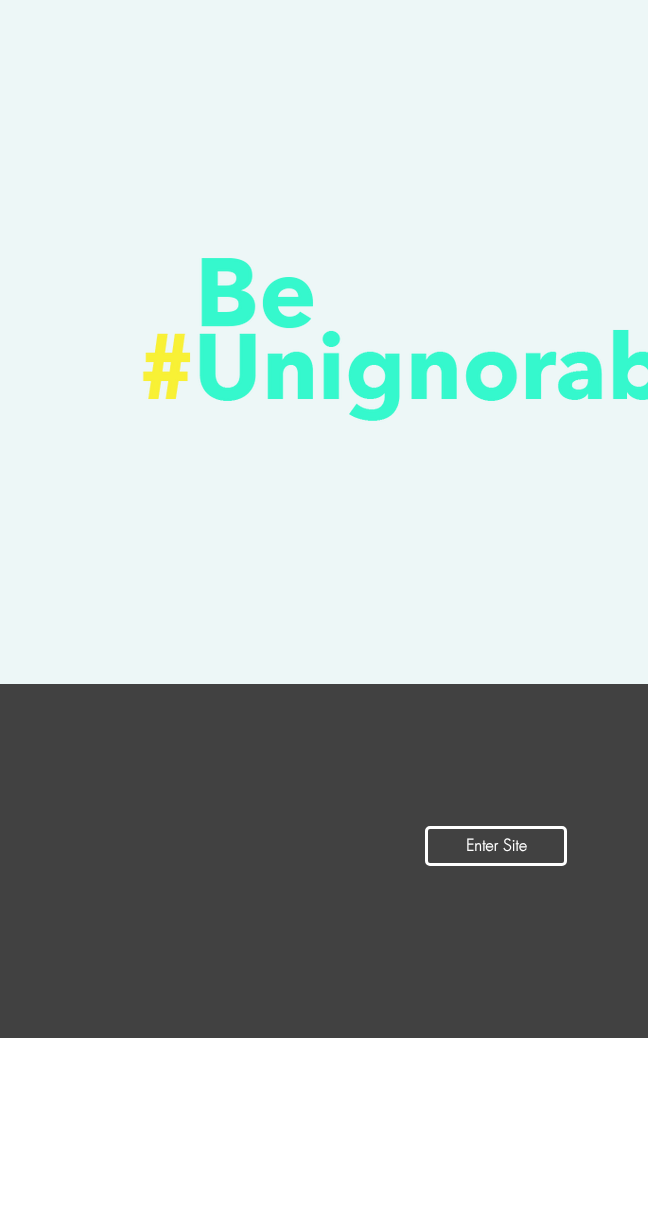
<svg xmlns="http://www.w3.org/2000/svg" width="648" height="1210">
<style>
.a{font:bold 16px futura;fill:#fff}
</style>
<rect width="100%" height="100%" fill="#fff"/>
<path fill="#edf7f7" d="M0 0h648v684H0z"/>
<image href="1.png" x="142" y="258" width="506" height="164"/>
<path fill="#414141" d="M0 684h648v354H0z"/>
<rect fill="none" stroke="#fff" stroke-width="3" x="426.5" y="827.5" width="139" height="37" rx="3.5"/>
<text class="a" x="466" y="851">Enter Site</text>
</svg>
